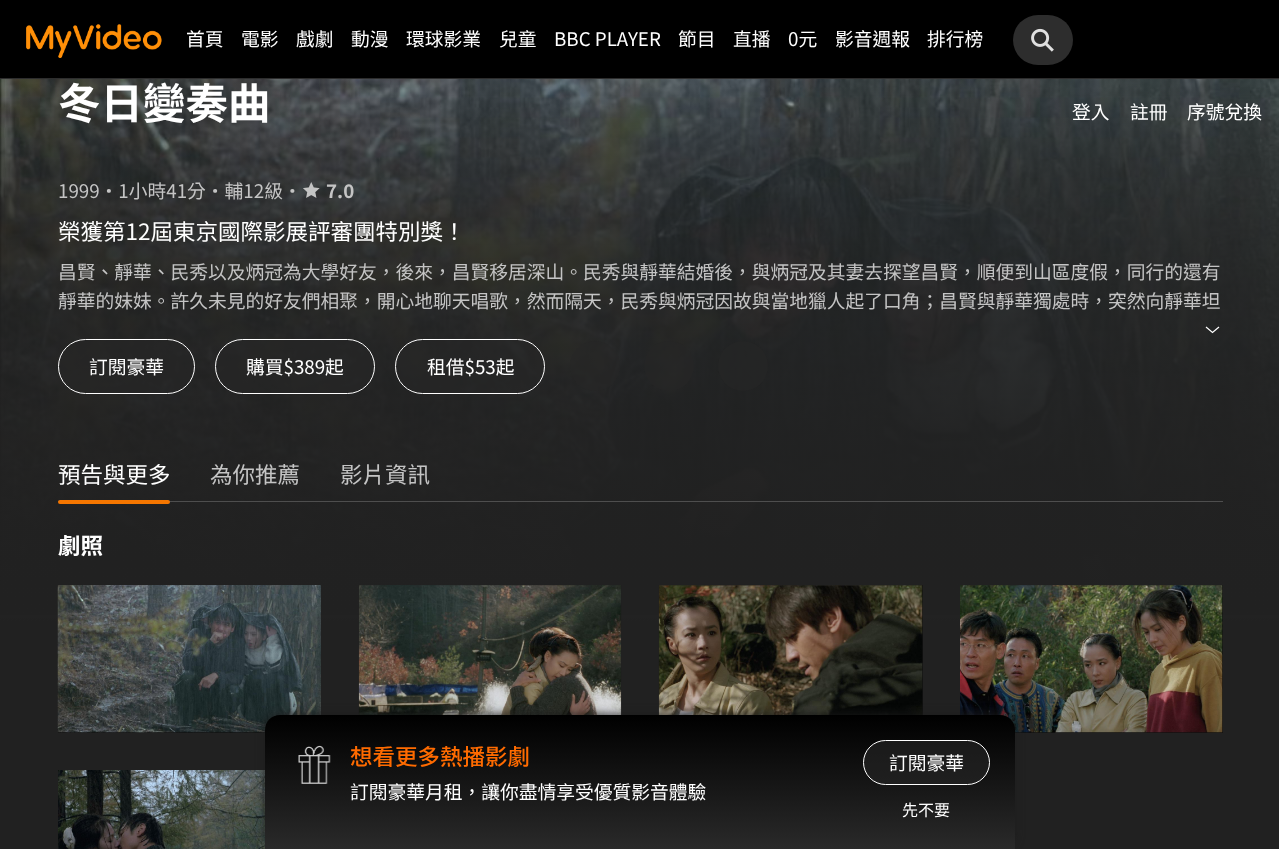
<svg xmlns="http://www.w3.org/2000/svg" width="1279" height="849">
<style>
.a{font:18.75px Noto Sans TC;fill:#fff}
.b{font:bold 42.5px Noto Sans TC;fill:#fff}
.c{font:18.75px Noto Sans TC;fill:#c4c4c4}
.d{font:bold 18.75px Noto Sans TC;fill:#c4c4c4}
.e{font:22.5px Noto Sans TC;fill:#fff}
.f{font:22.5px Noto Sans TC;fill:#c4c4c4}
.g{font:bold 22.5px Noto Sans TC;fill:#fff}
.h{font:500 22.5px Noto Sans TC;fill:#ff6b00}
.i{font:16px Noto Sans TC;fill:#fff}
</style>
<defs>
<linearGradient id="g1" gradientUnits="userSpaceOnUse" x1="640" y1="-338" x2="640" y2="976"><stop offset="0.3" stop-color="#212121" stop-opacity="0"/><stop offset="0.39" stop-color="#212121" stop-opacity="0.45"/><stop offset="0.49" stop-color="#212121" stop-opacity="0.7"/><stop offset="0.73" stop-color="#212121"/></linearGradient>
<linearGradient id="g2" gradientUnits="userSpaceOnUse" x1="640" y1="715" x2="640" y2="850"><stop offset="0" stop-color="#000"/><stop offset="1" stop-color="#2a2a2a"/></linearGradient>
</defs>
<rect width="100%" height="100%" fill="#fff"/>
<path fill="#000" d="M0 0h1279v78H0z"/>
<path fill="#2d2d2d" d="M0 78h1279v1H0z"/>
<image href="1.png" x="26" y="24" width="136" height="34"/>
<rect fill="#2d2d2d" x="1013" y="15" width="60" height="50" rx="25"/>
<image href="2.png" x="1031" y="28" width="23" height="24"/>
<image href="3.png" x="0" y="79" width="1279" height="536"/>
<path fill="url(#g1)" d="M0 79h1279v770H0z"/>
<image href="4.png" x="303" y="182" width="17" height="16"/>
<path fill="none" stroke="#fff" stroke-width="1.2" d="M1219 327l-6.5 5.5l-6.5-5.5"/>
<rect fill="#26262699" stroke="#fff" x="58.5" y="339.5" width="136" height="54" rx="27"/>
<rect fill="#26262699" stroke="#fff" x="215.5" y="339.5" width="159" height="54" rx="27"/>
<rect fill="#26262699" stroke="#fff" x="395.5" y="339.5" width="149" height="54" rx="27"/>
<circle fill="#26262699" cx="595" cy="366" r="25"/>
<circle fill="#26262699" cx="669" cy="366" r="25"/>
<circle fill="#26262699" cx="743" cy="366" r="25"/>
<path fill="#4e4e4e" d="M58 501h1165v1H58z"/>
<rect fill="#f57600" x="58" y="500" width="112" height="4" rx="2"/>
<path fill="#121212" d="M58 732h207v1H58z"/>
<image href="5.png" x="57" y="585" width="264" height="148"/>
<image href="6.png" x="358" y="585" width="264" height="130"/>
<path fill="#121212" d="M922 585h1v130H922z"/>
<image href="7.png" x="658" y="585" width="265" height="130"/>
<path fill="#121212" d="M1015 585h208v148H1015z"/>
<image href="8.png" x="960" y="585" width="263" height="148"/>
<image href="9.png" x="58" y="770" width="207" height="79"/>
<rect fill="#1b1b1bcc" filter="blur(5px)" x="265" y="714" width="750" height="135" rx="15"/>
<path fill="url(#g2)" d="M280 715h720c8.5 0 15 6.5 15 15v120h-750v-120c0-8.5 6.5-15 15-15z"/>
<image href="10.png" x="298" y="745" width="33" height="39"/>
<rect fill="#26262699" stroke="#fff" x="863.5" y="740.5" width="126" height="44" rx="22"/>
<text class="a" x="186" y="46">首頁</text>
<text class="a" x="241" y="46">電影</text>
<text class="a" x="296" y="46">戲劇</text>
<text class="a" x="351" y="46">動漫</text>
<text class="a" x="406" y="46">環球影業</text>
<text class="a" x="499" y="46">兒童</text>
<text class="a" x="554" y="46">BBC PLAYER</text>
<text class="a" x="678" y="46">節目</text>
<text class="a" x="733" y="46">直播</text>
<text class="a" x="788" y="46">0元</text>
<text class="a" x="835" y="46">影音週報</text>
<text class="a" x="927" y="46">排行榜</text>
<text class="a" x="1072" y="119">登入</text>
<text class="a" x="1130" y="119">註冊</text>
<text class="a" x="1187" y="119">序號兌換</text>
<text class="b" x="58" y="119">冬日變奏曲</text>
<text class="c" x="58" y="198">1999・1小時41分・輔12級・</text>
<text class="d" x="326" y="198">7.0</text>
<text class="e" x="58" y="240">榮獲第12屆東京國際影展評審團特別獎！</text>
<text class="c" x="58" y="279">昌賢、靜華、民秀以及炳冠為大學好友，後來，昌賢移居深山。民秀與靜華結婚後，與炳冠及其妻去探望昌賢，順便到山區度假，同行的還有</text>
<text class="c" x="58" y="308">靜華的妹妹。許久未見的好友們相聚，開心地聊天唱歌，然而隔天，民秀與炳冠因故與當地獵人起了口角；昌賢與靜華獨處時，突然向靜華坦</text>
<text class="a" x="89" y="374">訂閱豪華</text>
<text class="a" x="246" y="374">購買$389起</text>
<text class="a" x="427" y="374">租借$53起</text>
<text class="e" x="58" y="483">預告與更多</text>
<text class="f" x="210" y="483">為你推薦</text>
<text class="f" x="340" y="483">影片資訊</text>
<text class="g" x="58" y="554">劇照</text>
<text class="h" x="350" y="765">想看更多熱播影劇</text>
<text class="a" x="350" y="799">訂閱豪華月租，讓你盡情享受優質影音體驗</text>
<text class="a" x="889" y="770">訂閱豪華</text>
<text class="i" x="902" y="816">先不要</text>
</svg>
